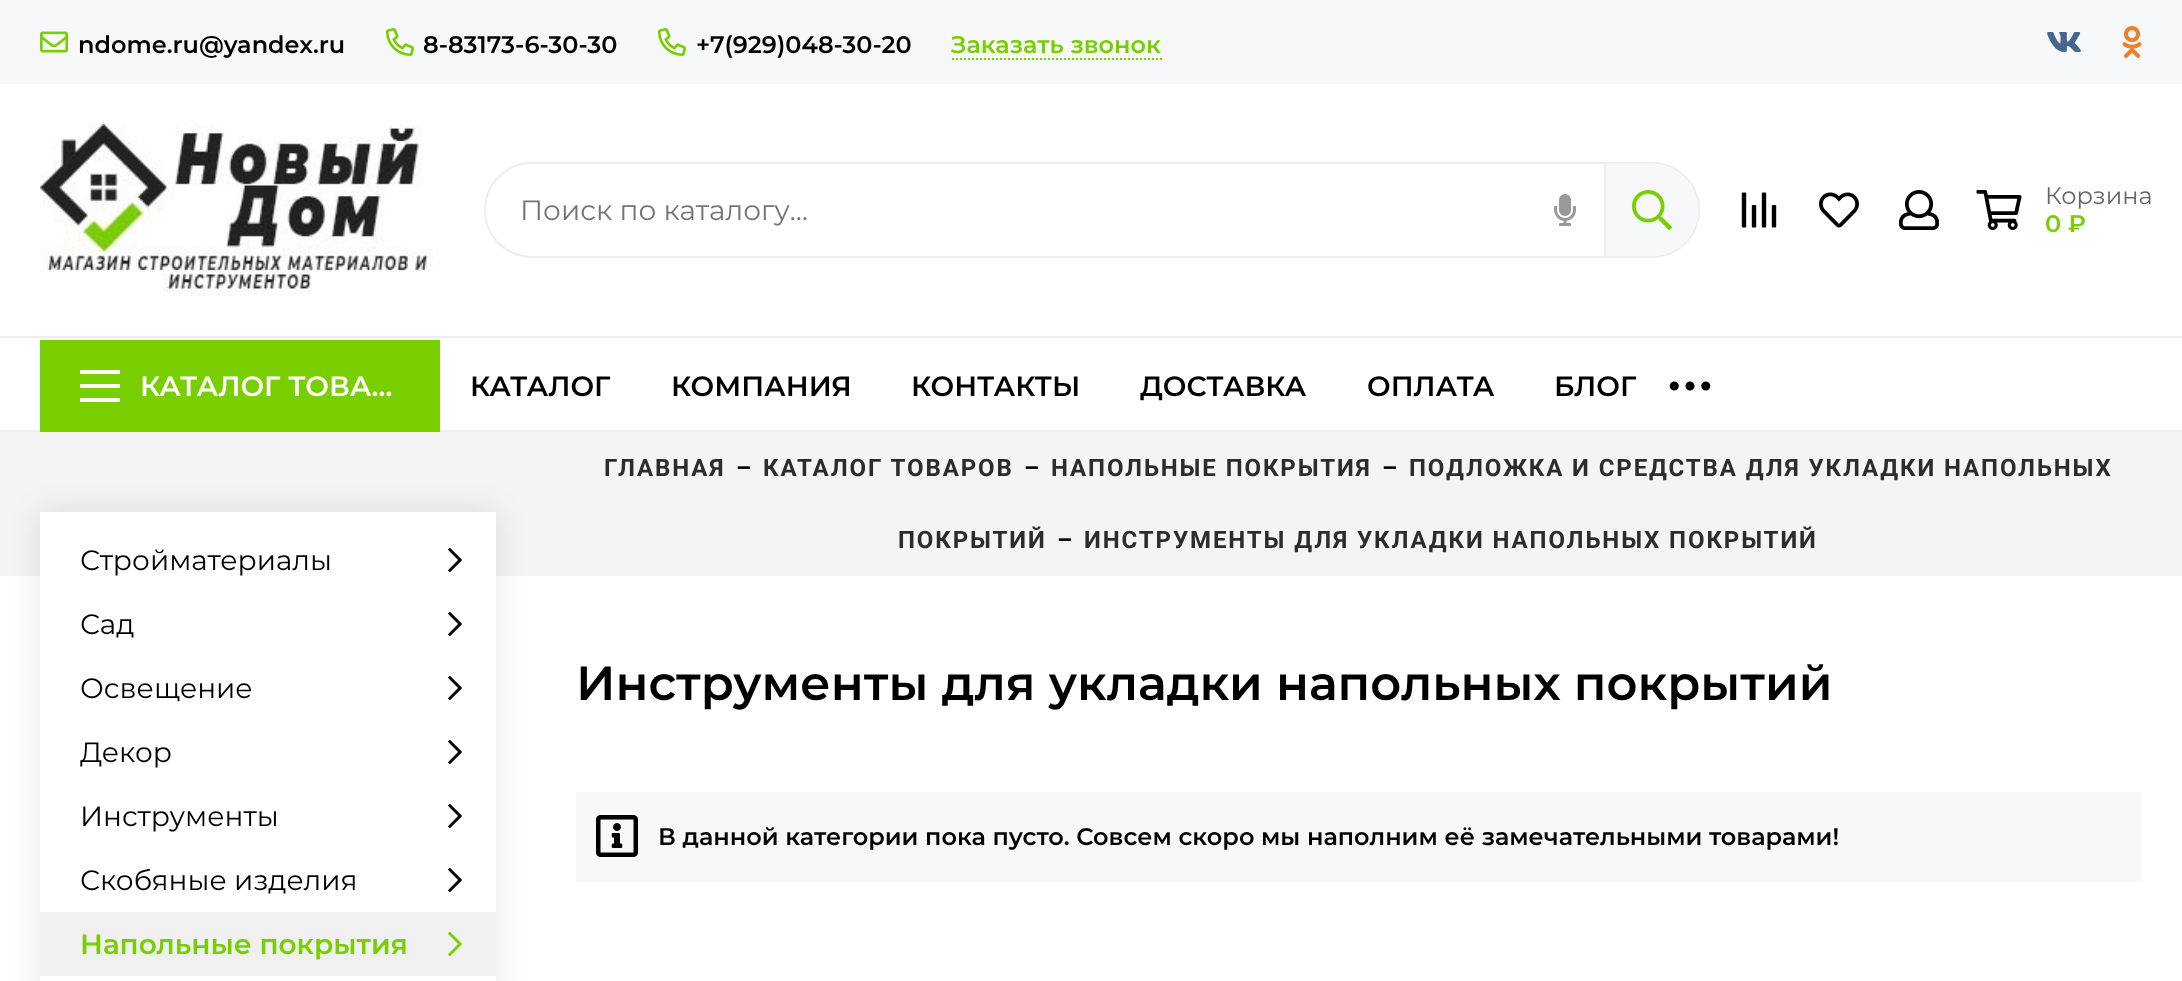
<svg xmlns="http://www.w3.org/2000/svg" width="2182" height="981">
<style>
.a{font:600 24px Montserrat;fill:#000}
.b{font:600 24px Montserrat;fill:#79ce00}
.c{font:28px Montserrat;fill:#757575}
.d{font:24px Montserrat;fill:#666}
.e{font:600 28px Montserrat;fill:#fff}
.f{font:600 28px Montserrat;fill:#000}
.g{font:bold 24px Roboto;letter-spacing:1.9px;fill:#2e2b2b}
.h{font:bold 24px Roboto;letter-spacing:1.9px;fill:#000}
.i{font:28px Montserrat;fill:#000}
.j{font:600 28px Montserrat;fill:#79ce00}
.k{font:600 48px Montserrat;fill:#000}
</style>
<rect width="100%" height="100%" fill="#fff"/>
<path fill="#f7f8fa" d="M0 0h2182v84H0z"/>
<image href="1.png" x="40" y="31" width="28" height="22"/>
<image href="2.png" x="386" y="28" width="28" height="28"/>
<image href="2.png" x="658" y="28" width="28" height="28"/>
<path fill="none" stroke="#79ce00" stroke-width="2" stroke-dasharray="2 2" d="M952 59h210"/>
<image href="3.png" x="2047" y="32" width="34" height="20"/>
<image href="4.png" x="2122" y="26" width="20" height="32"/>
<image href="5.png" x="40" y="124" width="394" height="172"/>
<rect fill="none" stroke="#eee" stroke-width="2" x="485" y="163" width="1214" height="94" rx="47"/>
<image href="6.png" x="1554" y="194" width="22" height="32"/>
<path fill="#f7f8fa" d="M1604 164h48c25.5 0 46 20.5 46 46c0 25.5-20.5 46-46 46h-48z"/>
<path fill="#eee" d="M1604 164h2v92H1604z"/>
<image href="7.png" x="1632" y="190" width="40" height="40"/>
<image href="8.png" x="1741" y="192" width="36" height="36"/>
<image href="9.png" x="1819" y="192" width="40" height="36"/>
<image href="10.png" x="1899" y="190" width="40" height="40"/>
<image href="11.png" x="1976" y="190" width="46" height="40"/>
<path fill="#eee" d="M0 336h2182v2H0z"/>
<path fill="#eee" d="M0 430h2182v2H0z"/>
<path fill="#79ce00" d="M40 340h400v92H40z"/>
<path fill="#fff" d="M80 370h40v4H80z"/>
<path fill="#fff" d="M80 384h40v4H80z"/>
<path fill="#fff" d="M80 398h40v4H80z"/>
<image href="12.png" x="1669" y="381" width="42" height="10"/>
<path fill="#f4f4f4" d="M0 432h2182v144H0z"/>
<path fill="#0000001a" filter="blur(15px)" d="M40 512h456v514H40z"/>
<path fill="#fff" d="M40 512h456v469H40z"/>
<image href="13.png" x="448" y="547" width="14" height="26"/>
<image href="13.png" x="448" y="611" width="14" height="26"/>
<image href="13.png" x="448" y="675" width="14" height="26"/>
<image href="13.png" x="448" y="739" width="14" height="26"/>
<image href="13.png" x="448" y="803" width="14" height="26"/>
<image href="13.png" x="448" y="867" width="14" height="26"/>
<path fill="#f0f0f0" d="M40 912h456v64H40z"/>
<image href="14.png" x="448" y="931" width="14" height="26"/>
<path fill="#f7f8fa" d="M576 792h1566v90H576z"/>
<image href="15.png" x="596" y="815" width="42" height="42"/>
<text class="a" x="78" y="53">ndome.ru@yandex.ru</text>
<text class="a" x="423" y="53">8-83173-6-30-30</text>
<text class="a" x="696" y="53">+7(929)048-30-20</text>
<text class="b" x="951" y="53">Заказать звонок</text>
<text class="c" x="520" y="220">Поиск по каталогу…</text>
<text class="d" x="2045" y="204">Корзина</text>
<text class="b" x="2045" y="232">0 ₽</text>
<text class="e" x="140" y="396">КАТАЛОГ ТОВА…</text>
<text class="f" x="470" y="396">КАТАЛОГ</text>
<text class="f" x="671" y="396">КОМПАНИЯ</text>
<text class="f" x="911" y="396">КОНТАКТЫ</text>
<text class="f" x="1140" y="396">ДОСТАВКА</text>
<text class="f" x="1367" y="396">ОПЛАТА</text>
<text class="f" x="1554" y="396">БЛОГ</text>
<text class="g" x="604" y="476">ГЛАВНАЯ</text>
<text class="h" x="736" y="476">–</text>
<text class="g" x="763" y="476">КАТАЛОГ ТОВАРОВ</text>
<text class="h" x="1024" y="476">–</text>
<text class="g" x="1051" y="476">НАПОЛЬНЫЕ ПОКРЫТИЯ</text>
<text class="h" x="1382" y="476">–</text>
<text class="g" x="1409" y="476">ПОДЛОЖКА И СРЕДСТВА ДЛЯ УКЛАДКИ НАПОЛЬНЫХ</text>
<text class="g" x="898" y="548">ПОКРЫТИЙ</text>
<text class="h" x="1057" y="548">–</text>
<text class="g" x="1084" y="548">ИНСТРУМЕНТЫ ДЛЯ УКЛАДКИ НАПОЛЬНЫХ ПОКРЫТИЙ</text>
<text class="i" x="80" y="570">Стройматериалы</text>
<text class="i" x="80" y="634">Сад</text>
<text class="i" x="80" y="698">Освещение</text>
<text class="i" x="80" y="762">Декор</text>
<text class="i" x="80" y="826">Инструменты</text>
<text class="i" x="80" y="890">Скобяные изделия</text>
<text class="j" x="80" y="954">Напольные покрытия</text>
<text class="k" x="576" y="700">Инструменты для укладки напольных покрытий</text>
<text class="a" x="658" y="845">В данной категории пока пусто. Совсем скоро мы наполним её замечательными товарами!</text>
</svg>
